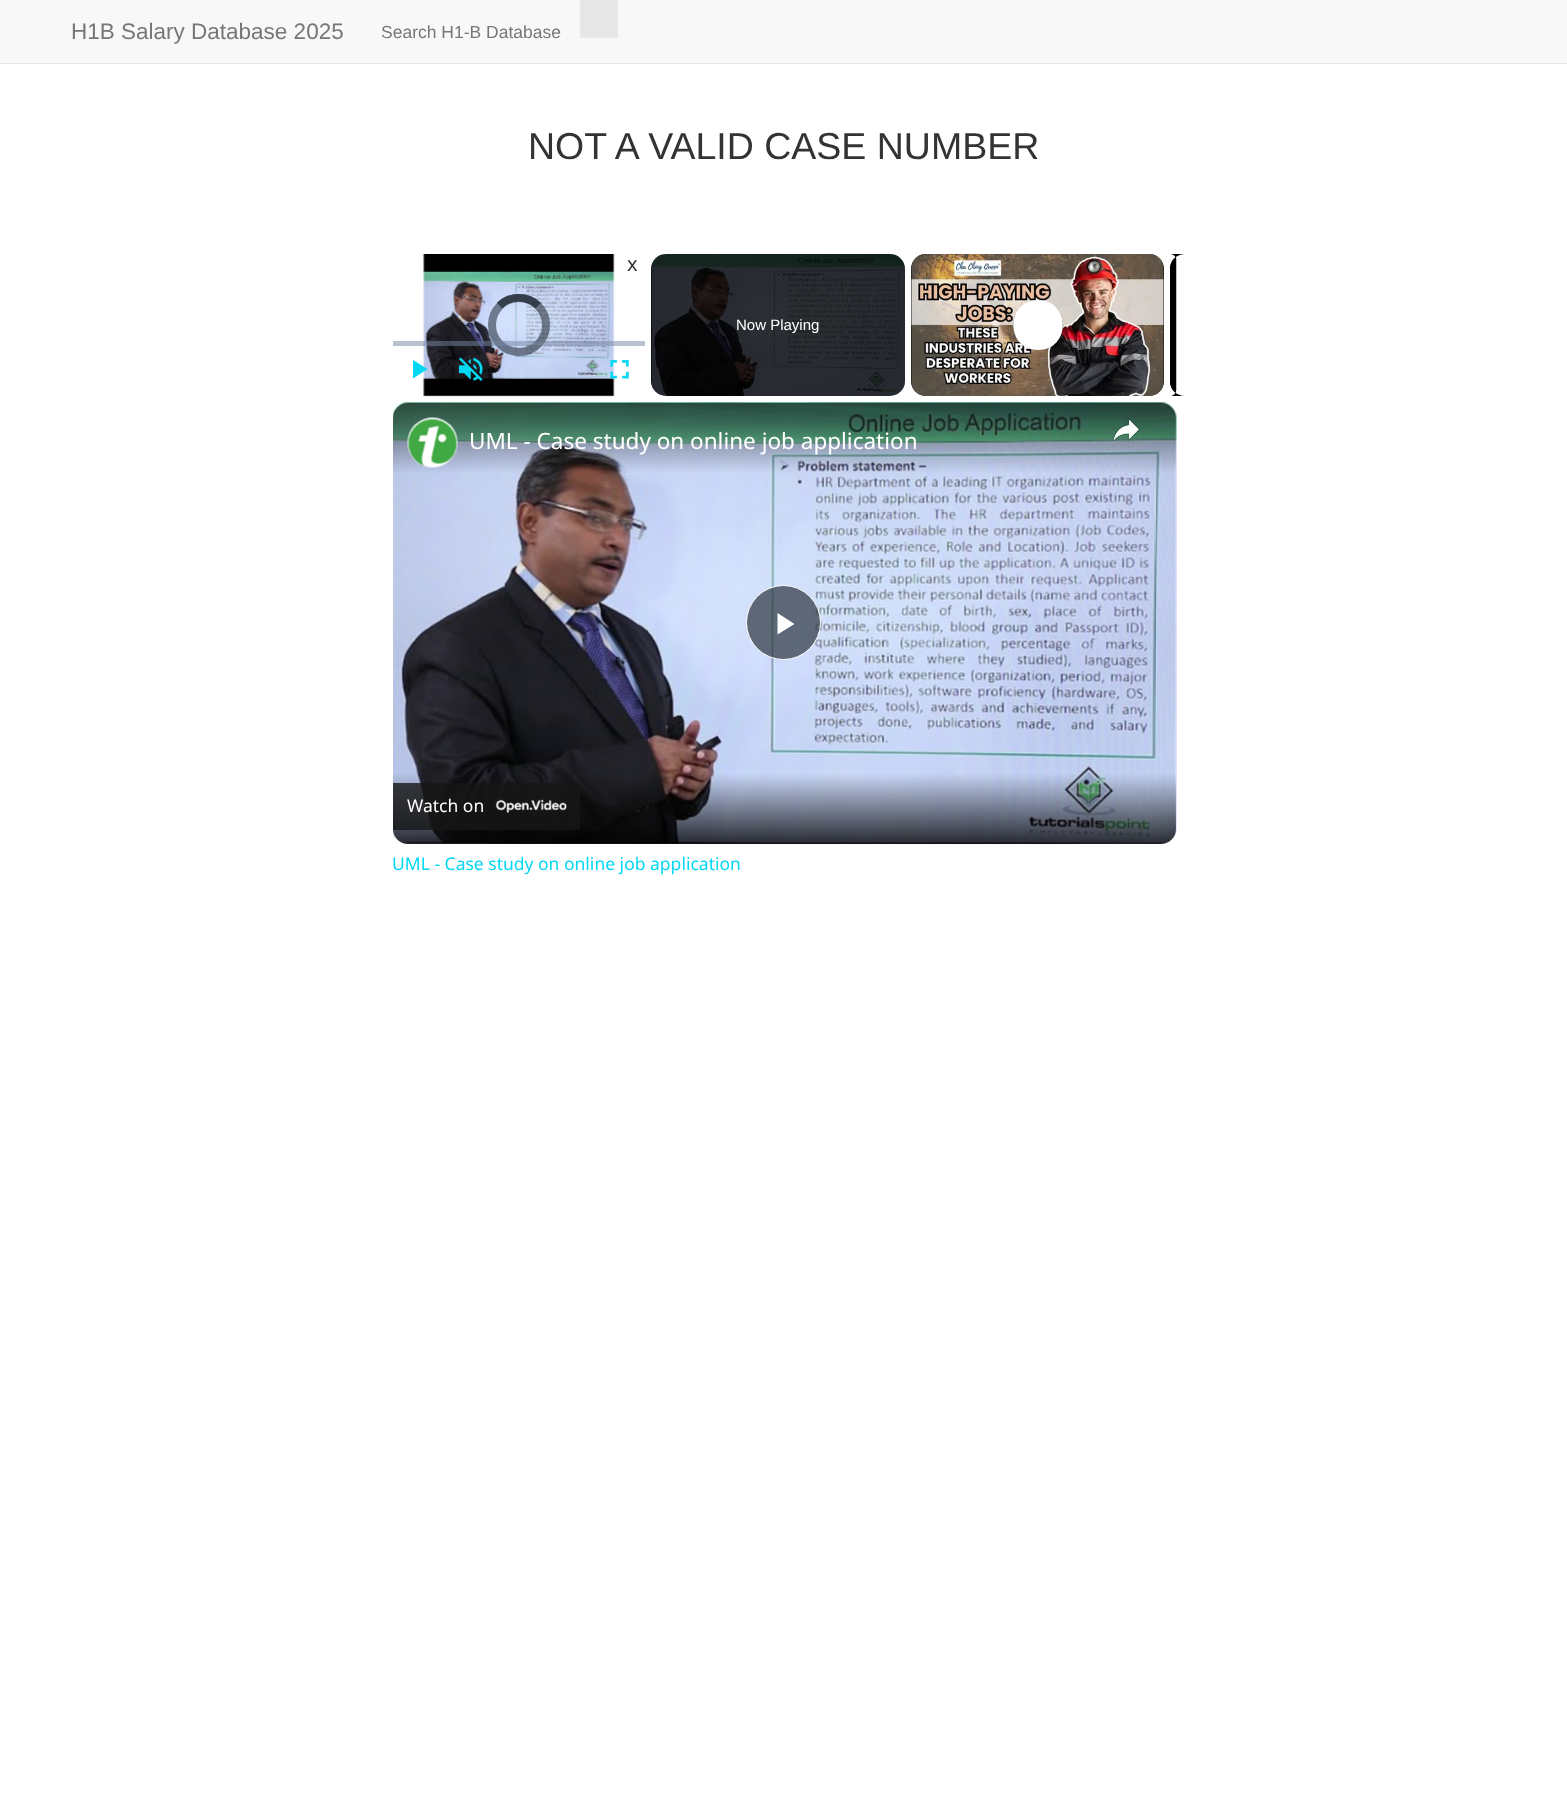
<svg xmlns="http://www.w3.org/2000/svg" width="1567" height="1808">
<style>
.a{font:22.5px Liberation Sans;fill:#777}
.b{font:17.5px Liberation Sans;fill:#777}
.c{font:37.5px Liberation Sans;fill:#333}
.d{font:20px Noto Sans;fill:#333}
.e{font:15px Liberation Sans;fill:#fff}
.f{font:22.5px Noto Sans;fill:#fff}
.g{font:17.5px Noto Sans;fill:#fff}
.h{font:17.5px Noto Sans;fill:#03d8f3}
</style>
<defs>
<linearGradient id="g1" gradientUnits="userSpaceOnUse" x1="784" y1="403" x2="784" y2="844"><stop offset="0" stop-color="#000" stop-opacity="0.6"/><stop offset="0.16" stop-color="#000" stop-opacity="0"/><stop offset="0.84" stop-color="#000" stop-opacity="0"/><stop offset="1" stop-color="#000" stop-opacity="0.8"/></linearGradient>
</defs>
<rect width="100%" height="100%" fill="#fff"/>
<path fill="#f8f8f8" d="M0 0h1567v63H0z"/>
<path fill="#e7e7e7" d="M0 63h1567v1H0z"/>
<path fill="#e7e7e7" d="M580 0h38v38H580z"/>
<image href="1.png" x="423" y="254" width="192" height="143"/>
<circle fill="none" stroke="#2b333f96" stroke-width="8" cx="519" cy="325" r="27"/>
<path fill="none" stroke="#2b333f96" stroke-width="7.5" d="M499.5 305.5c10.5-10.5 28-10.5 38.5 0"/>
<path fill="none" stroke="#2b333f96" stroke-width="7.5" d="M499.5 305.5c10.5-10.5 28-10.5 38.5 0"/>
<path fill="#73859f80" d="M393 341h252v5H393z"/>
<path fill="#03d8f3" d="M413 360v18.5l14.5-9.5z"/>
<image href="2.png" x="458" y="357" width="25" height="24"/>
<image href="3.png" x="610" y="360" width="19" height="19"/>
<rect fill="#000" x="651" y="254" width="254" height="142" rx="15"/>
<image href="4.png" x="651" y="254" width="254" height="142"/>
<rect fill="#000" x="911" y="254" width="253" height="142" rx="15"/>
<image href="5.png" x="911" y="254" width="253" height="142"/>
<circle fill="#2b333fb3" cx="1038" cy="325" r="25"/>
<path fill="#fff" d="M1038 300c-33 0-33 50 0 50c33 0 33-50 0-50z"/>
<path fill="#000" d="M1185 254h-15c3.5 0 6 2.5 6 6v130c0 3.5-2.5 6-6 6h15c-8.5 0-15-6.5-15-15v-112c0-8.5 6.5-15 15-15z"/>
<image href="6.png" x="1170" y="257" width="7" height="136"/>
<image href="8.png" x="489" y="843" width="591" height="1"/>
<image href="7.png" x="393" y="402" width="784" height="442"/>
<circle fill="#2b333fb3" stroke="#fff" cx="783.5" cy="622.5" r="37"/>
<path fill="#fff" d="M777.5 613v21.5l17-10.5z"/>
<rect fill="url(#g1)" x="393" y="403" width="783" height="441" rx="15"/>
<image href="9.png" x="407" y="417" width="51" height="51"/>
<image href="10.png" x="1112" y="417" width="28" height="25"/>
<path fill="#171717cc" d="M393 783h184.5c1.5 0 2.5 1 2.5 2.5v42c0 1.5-1 2.5-2.5 2.5h-184.5z"/>
<image href="11.png" x="495" y="799" width="72" height="14"/>
<text class="a" x="71" y="39">H1B Salary Database 2025</text>
<text class="b" x="381" y="38">Search H1-B Database</text>
<text class="c" x="528" y="159">NOT A VALID CASE NUMBER</text>
<text class="d" x="627" y="271">x</text>
<text class="e" x="736" y="330">Now Playing</text>
<text class="f" x="469" y="449">UML - Case study on online job application</text>
<text class="g" x="407" y="812">Watch on</text>
<text class="h" x="392" y="870">UML - Case study on online job application</text>
</svg>
